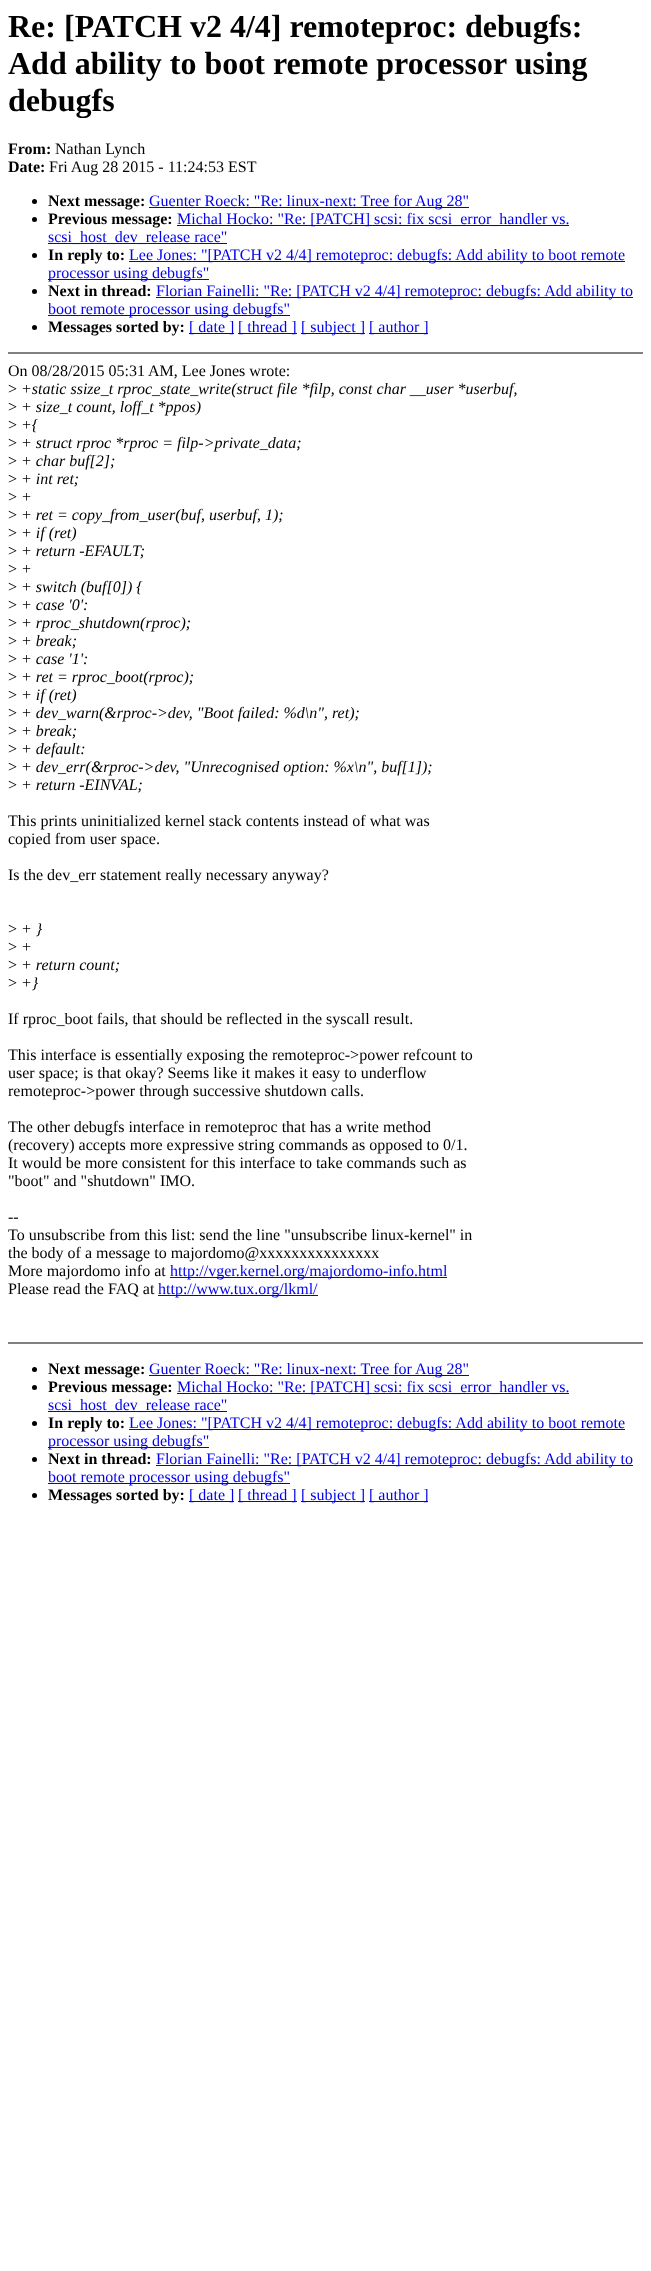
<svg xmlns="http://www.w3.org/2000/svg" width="651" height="2271">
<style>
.a{font:bold 32px Liberation Serif;fill:#000}
.b{font:bold 16px Liberation Serif;fill:#000}
.c{font:16px Liberation Serif;fill:#000}
.d{font:16px Liberation Serif;fill:#00e}
.e{font:italic 16px Liberation Serif;fill:#000}
</style>
<rect width="100%" height="100%" fill="#fff"/>
<circle fill="#000" cx="34.5" cy="201.5" r="2.5"/>
<path fill="#00e" d="M149 207h320v1H149z"/>
<circle fill="#000" cx="34.5" cy="219.5" r="2.5"/>
<path fill="#00e" d="M177 225h392v1H177z"/>
<path fill="#00e" d="M48 243h179v1H48z"/>
<circle fill="#000" cx="34.5" cy="255.5" r="2.5"/>
<path fill="#00e" d="M129 261h496v1H129z"/>
<path fill="#00e" d="M48 279h161v1H48z"/>
<circle fill="#000" cx="34.5" cy="291.5" r="2.5"/>
<path fill="#00e" d="M156 297h477v1H156z"/>
<path fill="#00e" d="M48 315h242v1H48z"/>
<circle fill="#000" cx="34.5" cy="327.5" r="2.5"/>
<path fill="#00e" d="M189 333h45v1H189z"/>
<path fill="#00e" d="M238 333h59v1H238z"/>
<path fill="#00e" d="M301 333h64v1H301z"/>
<path fill="#00e" d="M369 333h59v1H369z"/>
<path fill="#808080" d="M8 352h635v2H8z"/>
<path fill="#00e" d="M170 1277h277v1H170z"/>
<path fill="#00e" d="M158 1295h160v1H158z"/>
<path fill="#808080" d="M8 1342h635v2H8z"/>
<circle fill="#000" cx="34.5" cy="1369.5" r="2.5"/>
<path fill="#00e" d="M149 1375h320v1H149z"/>
<circle fill="#000" cx="34.5" cy="1387.5" r="2.5"/>
<path fill="#00e" d="M177 1393h392v1H177z"/>
<path fill="#00e" d="M48 1411h179v1H48z"/>
<circle fill="#000" cx="34.5" cy="1423.5" r="2.5"/>
<path fill="#00e" d="M129 1429h496v1H129z"/>
<path fill="#00e" d="M48 1447h161v1H48z"/>
<circle fill="#000" cx="34.5" cy="1459.5" r="2.5"/>
<path fill="#00e" d="M156 1465h477v1H156z"/>
<path fill="#00e" d="M48 1483h242v1H48z"/>
<circle fill="#000" cx="34.5" cy="1495.5" r="2.5"/>
<path fill="#00e" d="M189 1501h45v1H189z"/>
<path fill="#00e" d="M238 1501h59v1H238z"/>
<path fill="#00e" d="M301 1501h64v1H301z"/>
<path fill="#00e" d="M369 1501h59v1H369z"/>
<text class="a" x="8" y="37">Re: [PATCH v2 4/4] remoteproc: debugfs:</text>
<text class="a" x="8" y="74">Add ability to boot remote processor using</text>
<text class="a" x="8" y="111">debugfs</text>
<text class="b" x="8" y="154">From:</text>
<text class="c" x="55" y="154">Nathan Lynch</text>
<text class="b" x="8" y="172">Date:</text>
<text class="c" x="49" y="172">Fri Aug 28 2015 - 11:24:53 EST</text>
<text class="b" x="48" y="206">Next message:</text>
<text class="d" x="149" y="206">Guenter Roeck: "Re: linux-next: Tree for Aug 28"</text>
<text class="b" x="48" y="224">Previous message:</text>
<text class="d" x="177" y="224">Michal Hocko: "Re: [PATCH] scsi: fix scsi_error_handler vs.</text>
<text class="d" x="48" y="242">scsi_host_dev_release race"</text>
<text class="b" x="48" y="260">In reply to:</text>
<text class="d" x="129" y="260">Lee Jones: "[PATCH v2 4/4] remoteproc: debugfs: Add ability to boot remote</text>
<text class="d" x="48" y="278">processor using debugfs"</text>
<text class="b" x="48" y="296">Next in thread:</text>
<text class="d" x="156" y="296">Florian Fainelli: "Re: [PATCH v2 4/4] remoteproc: debugfs: Add ability to</text>
<text class="d" x="48" y="314">boot remote processor using debugfs"</text>
<text class="b" x="48" y="332">Messages sorted by:</text>
<text class="d" x="189" y="332">[ date ]</text>
<text class="d" x="238" y="332">[ thread ]</text>
<text class="d" x="301" y="332">[ subject ]</text>
<text class="d" x="369" y="332">[ author ]</text>
<text class="c" x="8" y="376">On 08/28/2015 05:31 AM, Lee Jones wrote:</text>
<text class="c" x="8" y="394">&gt;</text>
<text class="e" x="21" y="394">+static ssize_t rproc_state_write(struct file *filp, const char __user *userbuf,</text>
<text class="c" x="8" y="412">&gt;</text>
<text class="e" x="21" y="412">+ size_t count, loff_t *ppos)</text>
<text class="c" x="8" y="430">&gt;</text>
<text class="e" x="21" y="430">+{</text>
<text class="c" x="8" y="448">&gt;</text>
<text class="e" x="21" y="448">+ struct rproc *rproc = filp-&gt;private_data;</text>
<text class="c" x="8" y="466">&gt;</text>
<text class="e" x="21" y="466">+ char buf[2];</text>
<text class="c" x="8" y="484">&gt;</text>
<text class="e" x="21" y="484">+ int ret;</text>
<text class="c" x="8" y="502">&gt;</text>
<text class="e" x="21" y="502">+</text>
<text class="c" x="8" y="520">&gt;</text>
<text class="e" x="21" y="520">+ ret = copy_from_user(buf, userbuf, 1);</text>
<text class="c" x="8" y="538">&gt;</text>
<text class="e" x="21" y="538">+ if (ret)</text>
<text class="c" x="8" y="556">&gt;</text>
<text class="e" x="21" y="556">+ return -EFAULT;</text>
<text class="c" x="8" y="574">&gt;</text>
<text class="e" x="21" y="574">+</text>
<text class="c" x="8" y="592">&gt;</text>
<text class="e" x="21" y="592">+ switch (buf[0]) {</text>
<text class="c" x="8" y="610">&gt;</text>
<text class="e" x="21" y="610">+ case '0':</text>
<text class="c" x="8" y="628">&gt;</text>
<text class="e" x="21" y="628">+ rproc_shutdown(rproc);</text>
<text class="c" x="8" y="646">&gt;</text>
<text class="e" x="21" y="646">+ break;</text>
<text class="c" x="8" y="664">&gt;</text>
<text class="e" x="21" y="664">+ case '1':</text>
<text class="c" x="8" y="682">&gt;</text>
<text class="e" x="21" y="682">+ ret = rproc_boot(rproc);</text>
<text class="c" x="8" y="700">&gt;</text>
<text class="e" x="21" y="700">+ if (ret)</text>
<text class="c" x="8" y="718">&gt;</text>
<text class="e" x="21" y="718">+ dev_warn(&amp;rproc-&gt;dev, "Boot failed: %d\n", ret);</text>
<text class="c" x="8" y="736">&gt;</text>
<text class="e" x="21" y="736">+ break;</text>
<text class="c" x="8" y="754">&gt;</text>
<text class="e" x="21" y="754">+ default:</text>
<text class="c" x="8" y="772">&gt;</text>
<text class="e" x="21" y="772">+ dev_err(&amp;rproc-&gt;dev, "Unrecognised option: %x\n", buf[1]);</text>
<text class="c" x="8" y="790">&gt;</text>
<text class="e" x="21" y="790">+ return -EINVAL;</text>
<text class="c" x="8" y="826">This prints uninitialized kernel stack contents instead of what was</text>
<text class="c" x="8" y="844">copied from user space.</text>
<text class="c" x="8" y="880">Is the dev_err statement really necessary anyway?</text>
<text class="c" x="8" y="934">&gt;</text>
<text class="e" x="21" y="934">+ }</text>
<text class="c" x="8" y="952">&gt;</text>
<text class="e" x="21" y="952">+</text>
<text class="c" x="8" y="970">&gt;</text>
<text class="e" x="21" y="970">+ return count;</text>
<text class="c" x="8" y="988">&gt;</text>
<text class="e" x="21" y="988">+}</text>
<text class="c" x="8" y="1024">If rproc_boot fails, that should be reflected in the syscall result.</text>
<text class="c" x="8" y="1060">This interface is essentially exposing the remoteproc-&gt;power refcount to</text>
<text class="c" x="8" y="1078">user space; is that okay? Seems like it makes it easy to underflow</text>
<text class="c" x="8" y="1096">remoteproc-&gt;power through successive shutdown calls.</text>
<text class="c" x="8" y="1132">The other debugfs interface in remoteproc that has a write method</text>
<text class="c" x="8" y="1150">(recovery) accepts more expressive string commands as opposed to 0/1.</text>
<text class="c" x="8" y="1168">It would be more consistent for this interface to take commands such as</text>
<text class="c" x="8" y="1186">"boot" and "shutdown" IMO.</text>
<text class="c" x="8" y="1222">--</text>
<text class="c" x="8" y="1240">To unsubscribe from this list: send the line "unsubscribe linux-kernel" in</text>
<text class="c" x="8" y="1258">the body of a message to majordomo@xxxxxxxxxxxxxxx</text>
<text class="c" x="8" y="1276">More majordomo info at</text>
<text class="d" x="170" y="1276">http://vger.kernel.org/majordomo-info.html</text>
<text class="c" x="8" y="1294">Please read the FAQ at</text>
<text class="d" x="158" y="1294">http://www.tux.org/lkml/</text>
<text class="b" x="48" y="1374">Next message:</text>
<text class="d" x="149" y="1374">Guenter Roeck: "Re: linux-next: Tree for Aug 28"</text>
<text class="b" x="48" y="1392">Previous message:</text>
<text class="d" x="177" y="1392">Michal Hocko: "Re: [PATCH] scsi: fix scsi_error_handler vs.</text>
<text class="d" x="48" y="1410">scsi_host_dev_release race"</text>
<text class="b" x="48" y="1428">In reply to:</text>
<text class="d" x="129" y="1428">Lee Jones: "[PATCH v2 4/4] remoteproc: debugfs: Add ability to boot remote</text>
<text class="d" x="48" y="1446">processor using debugfs"</text>
<text class="b" x="48" y="1464">Next in thread:</text>
<text class="d" x="156" y="1464">Florian Fainelli: "Re: [PATCH v2 4/4] remoteproc: debugfs: Add ability to</text>
<text class="d" x="48" y="1482">boot remote processor using debugfs"</text>
<text class="b" x="48" y="1500">Messages sorted by:</text>
<text class="d" x="189" y="1500">[ date ]</text>
<text class="d" x="238" y="1500">[ thread ]</text>
<text class="d" x="301" y="1500">[ subject ]</text>
<text class="d" x="369" y="1500">[ author ]</text>
</svg>
